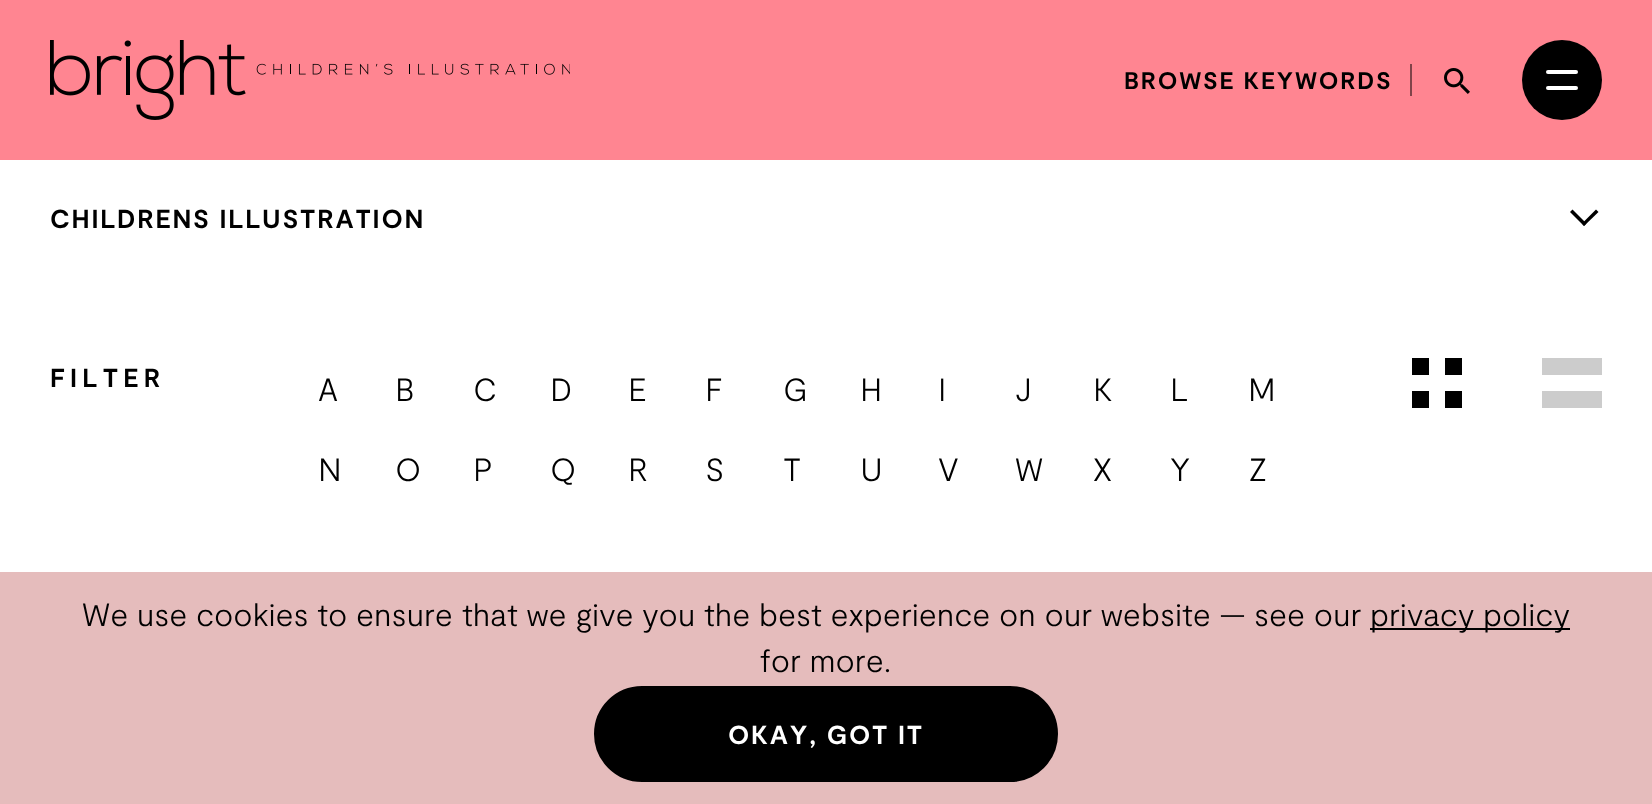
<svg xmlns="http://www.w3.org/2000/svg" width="1652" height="804">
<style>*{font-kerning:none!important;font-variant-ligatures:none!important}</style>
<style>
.a{font:bold 24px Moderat;letter-spacing:1.8px;fill:#000}
.b{font:bold 26px Moderat;letter-spacing:1.8px;fill:#000}
.c{font:bold 26px Moderat;letter-spacing:5.25px;fill:#000}
.d{font:300 32px Moderat;fill:#000}
.e{font:bold 26px Moderat;letter-spacing:1.8px;fill:#fff}
</style>
<rect width="100%" height="100%" fill="#fff"/>
<path fill="#ff8591" d="M0 0h1652v160H0z"/>
<image href="1.png" x="50" y="40" width="520" height="80"/>
<path fill="#804349" d="M1410 64h2v32H1410z"/>
<image href="2.png" x="1444" y="68" width="26" height="26"/>
<circle fill="#000" cx="1562" cy="80" r="40"/>
<rect fill="#fff" x="1546" y="70" width="32" height="4" rx="2"/>
<rect fill="#fff" x="1546" y="86" width="32" height="4" rx="2"/>
<path fill="#000" d="M1570 212l2.5-2.5l14 14l-2.5 2.5z"/>
<path fill="#000" d="M1596 209.5l2.5 2.5l-14.5 14l-2-2.5z"/>
<path fill="#000" d="M1412 358h17v17H1412z"/>
<path fill="#000" d="M1445 358h17v17H1445z"/>
<path fill="#000" d="M1412 391h17v17H1412z"/>
<path fill="#000" d="M1445 391h17v17H1445z"/>
<path fill="#ccc" d="M1542 358h60v17H1542z"/>
<path fill="#ccc" d="M1542 391h60v17H1542z"/>
<path fill="#e5bcbc" d="M0 572h1652v232H0z"/>
<path fill="#000" d="M1370 628h200v2H1370z"/>
<rect fill="#000" stroke="#e5bcbc" stroke-width="2" x="593" y="685" width="466" height="98" rx="49"/>
<text class="a" x="1124" y="89">BROWSE KEYWORDS</text>
<text class="b" x="50" y="228">CHILDRENS ILLUSTRATION</text>
<text class="c" x="50" y="387">FILTER</text>
<text class="d" x="318" y="401">A</text>
<text class="d" x="395" y="401">B</text>
<text class="d" x="473" y="401">C</text>
<text class="d" x="550" y="401">D</text>
<text class="d" x="628" y="401">E</text>
<text class="d" x="705" y="401">F</text>
<text class="d" x="783" y="401">G</text>
<text class="d" x="860" y="401">H</text>
<text class="d" x="938" y="401">I</text>
<text class="d" x="1015" y="401">J</text>
<text class="d" x="1093" y="401">K</text>
<text class="d" x="1170" y="401">L</text>
<text class="d" x="1248" y="401">M</text>
<text class="d" x="318" y="481">N</text>
<text class="d" x="395" y="481">O</text>
<text class="d" x="473" y="481">P</text>
<text class="d" x="550" y="481">Q</text>
<text class="d" x="628" y="481">R</text>
<text class="d" x="705" y="481">S</text>
<text class="d" x="783" y="481">T</text>
<text class="d" x="860" y="481">U</text>
<text class="d" x="938" y="481">V</text>
<text class="d" x="1015" y="481">W</text>
<text class="d" x="1093" y="481">X</text>
<text class="d" x="1170" y="481">Y</text>
<text class="d" x="1248" y="481">Z</text>
<text class="d" x="82" y="626">We use cookies to ensure</text>
<text class="d" x="462" y="626">that we give you the best experience</text>
<text class="d" x="999" y="626">on our website — see our</text>
<text class="d" x="1370" y="626">privacy policy</text>
<text class="d" x="760" y="672">for more.</text>
<text class="e" x="728" y="744">OKAY, GOT</text>
<text class="e" x="898" y="744">IT</text>
</svg>
